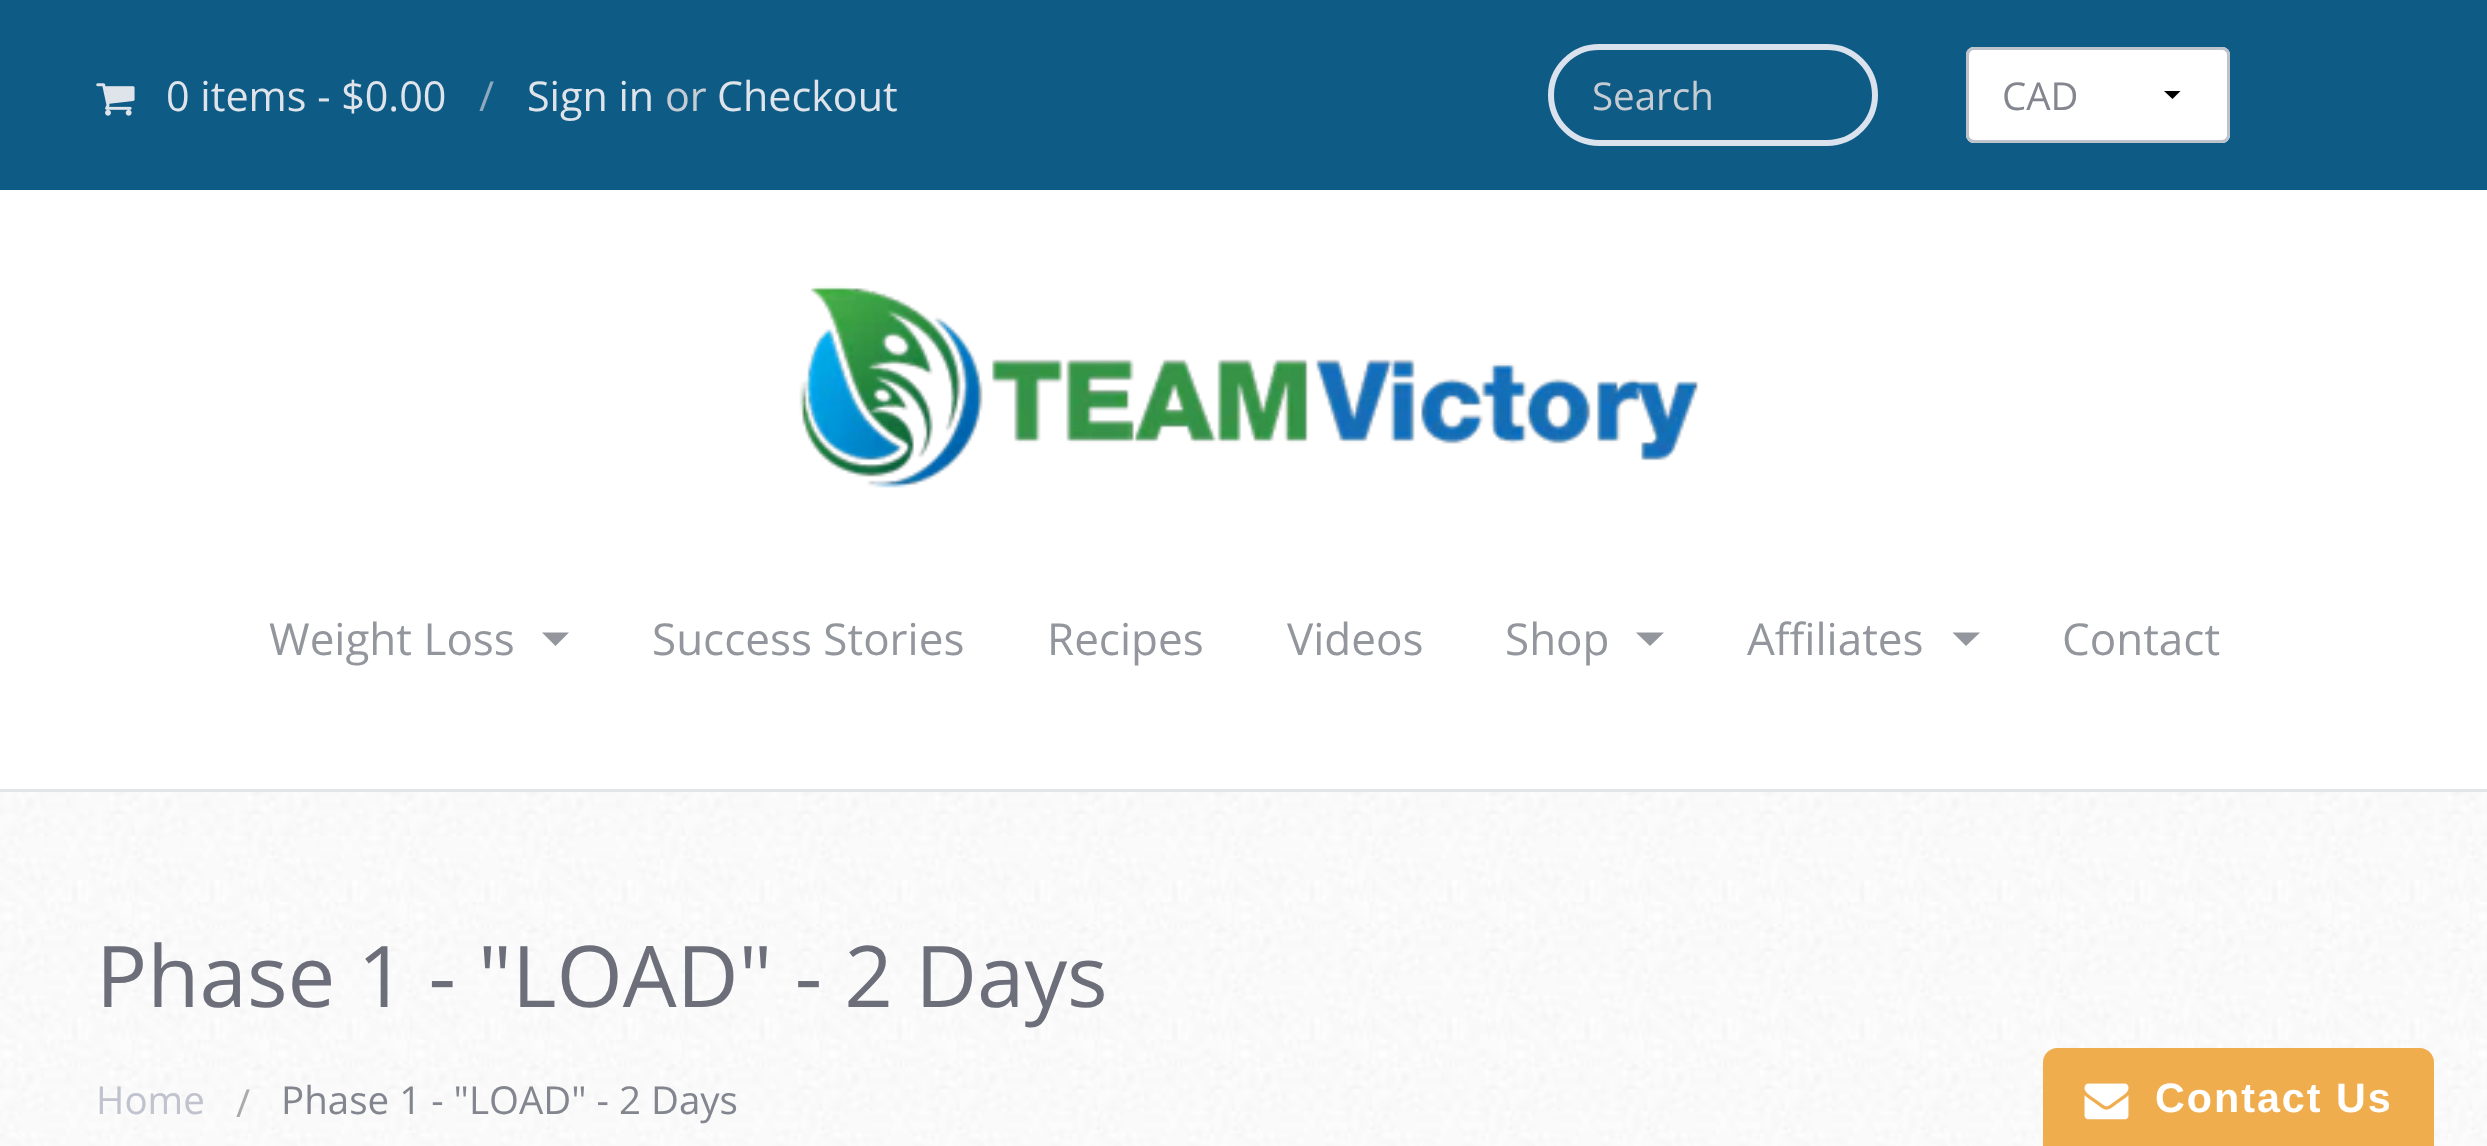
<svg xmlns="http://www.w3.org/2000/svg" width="2487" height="1146">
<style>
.a{font:41.25px Open Sans;fill:#dfe4ea}
.b{font:41.25px Open Sans;fill:#8faabc}
.c{font:41.25px Open Sans;fill:#c6ccd3}
.d{font:38.5px Open Sans;fill:#c6ccd3}
.e{font:38.5px Open Sans;fill:#83858f}
.f{font:44px Open Sans;fill:#93979d}
.g{font:85.25px Open Sans;fill:#6c6f7a}
.h{font:38.5px Open Sans;fill:#c0c2cd}
.i{font:38.5px Open Sans;fill:#aaa}
.j{font:bold 41.25px Liberation Sans;letter-spacing:2px;fill:#fff}
</style>
<rect width="100%" height="100%" fill="#0e5b86"/>
<image href="1.png" x="96" y="83" width="39" height="33"/>
<rect fill="none" stroke="#dae2ed" stroke-width="6" x="1551" y="47" width="324" height="96" rx="48"/>
<rect fill="#fff" x="1966" y="47" width="264" height="96" rx="8"/>
<path fill="#000" d="M2180.5 91l-8 8l-8.5-8z"/>
<rect fill="none" stroke="#bcc3ca" stroke-width="3" x="1967.5" y="48.5" width="261" height="93" rx="6.5"/>
<path fill="#fff" d="M0 190h2487v599H0z"/>
<path fill="#e4e5e6" d="M0 789h2487v3H0z"/>
<image href="2.png" x="799" y="285" width="900" height="203"/>
<path fill="#93979d" d="M542 632.5h27l-13.5 13.5z"/>
<path fill="#93979d" d="M1636 632.5h28l-14 13.5z"/>
<path fill="#93979d" d="M1952.5 632.5h27.5l-14 13.5z"/>
<image href="3.png" x="0" y="792" width="2487" height="354"/>
<path fill="#f0ad4e" d="M2057 1048h363c7.5 0 14 6.5 14 14v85h-391v-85c0-7.5 6.5-14 14-14z"/>
<image href="4.png" x="2084" y="1083" width="45" height="37"/>
<text class="a" x="166" y="111">0 items - $0.00</text>
<text class="b" x="479" y="111">/</text>
<text class="a" x="527" y="111">Sign in</text>
<text class="c" x="665" y="111">or</text>
<text class="a" x="717" y="111">Checkout</text>
<text class="d" x="1592" y="110">Search</text>
<text class="e" x="2002" y="110">CAD</text>
<text class="f" x="269" y="655">Weight Loss</text>
<text class="f" x="652" y="655">Success Stories</text>
<text class="f" x="1047" y="655">Recipes</text>
<text class="f" x="1287" y="655">Videos</text>
<text class="f" x="1505" y="655">Shop</text>
<text class="f" x="1747" y="655">Affiliates</text>
<text class="f" x="2062" y="655">Contact</text>
<text class="g" x="96" y="1007">Phase 1 - "LOAD" - 2 Days</text>
<text class="h" x="96" y="1114">Home</text>
<text class="i" x="236" y="1117">/</text>
<text class="e" x="281" y="1114">Phase 1 - "LOAD" - 2 Days</text>
<text class="j" x="2155" y="1112">Contact Us</text>
</svg>
